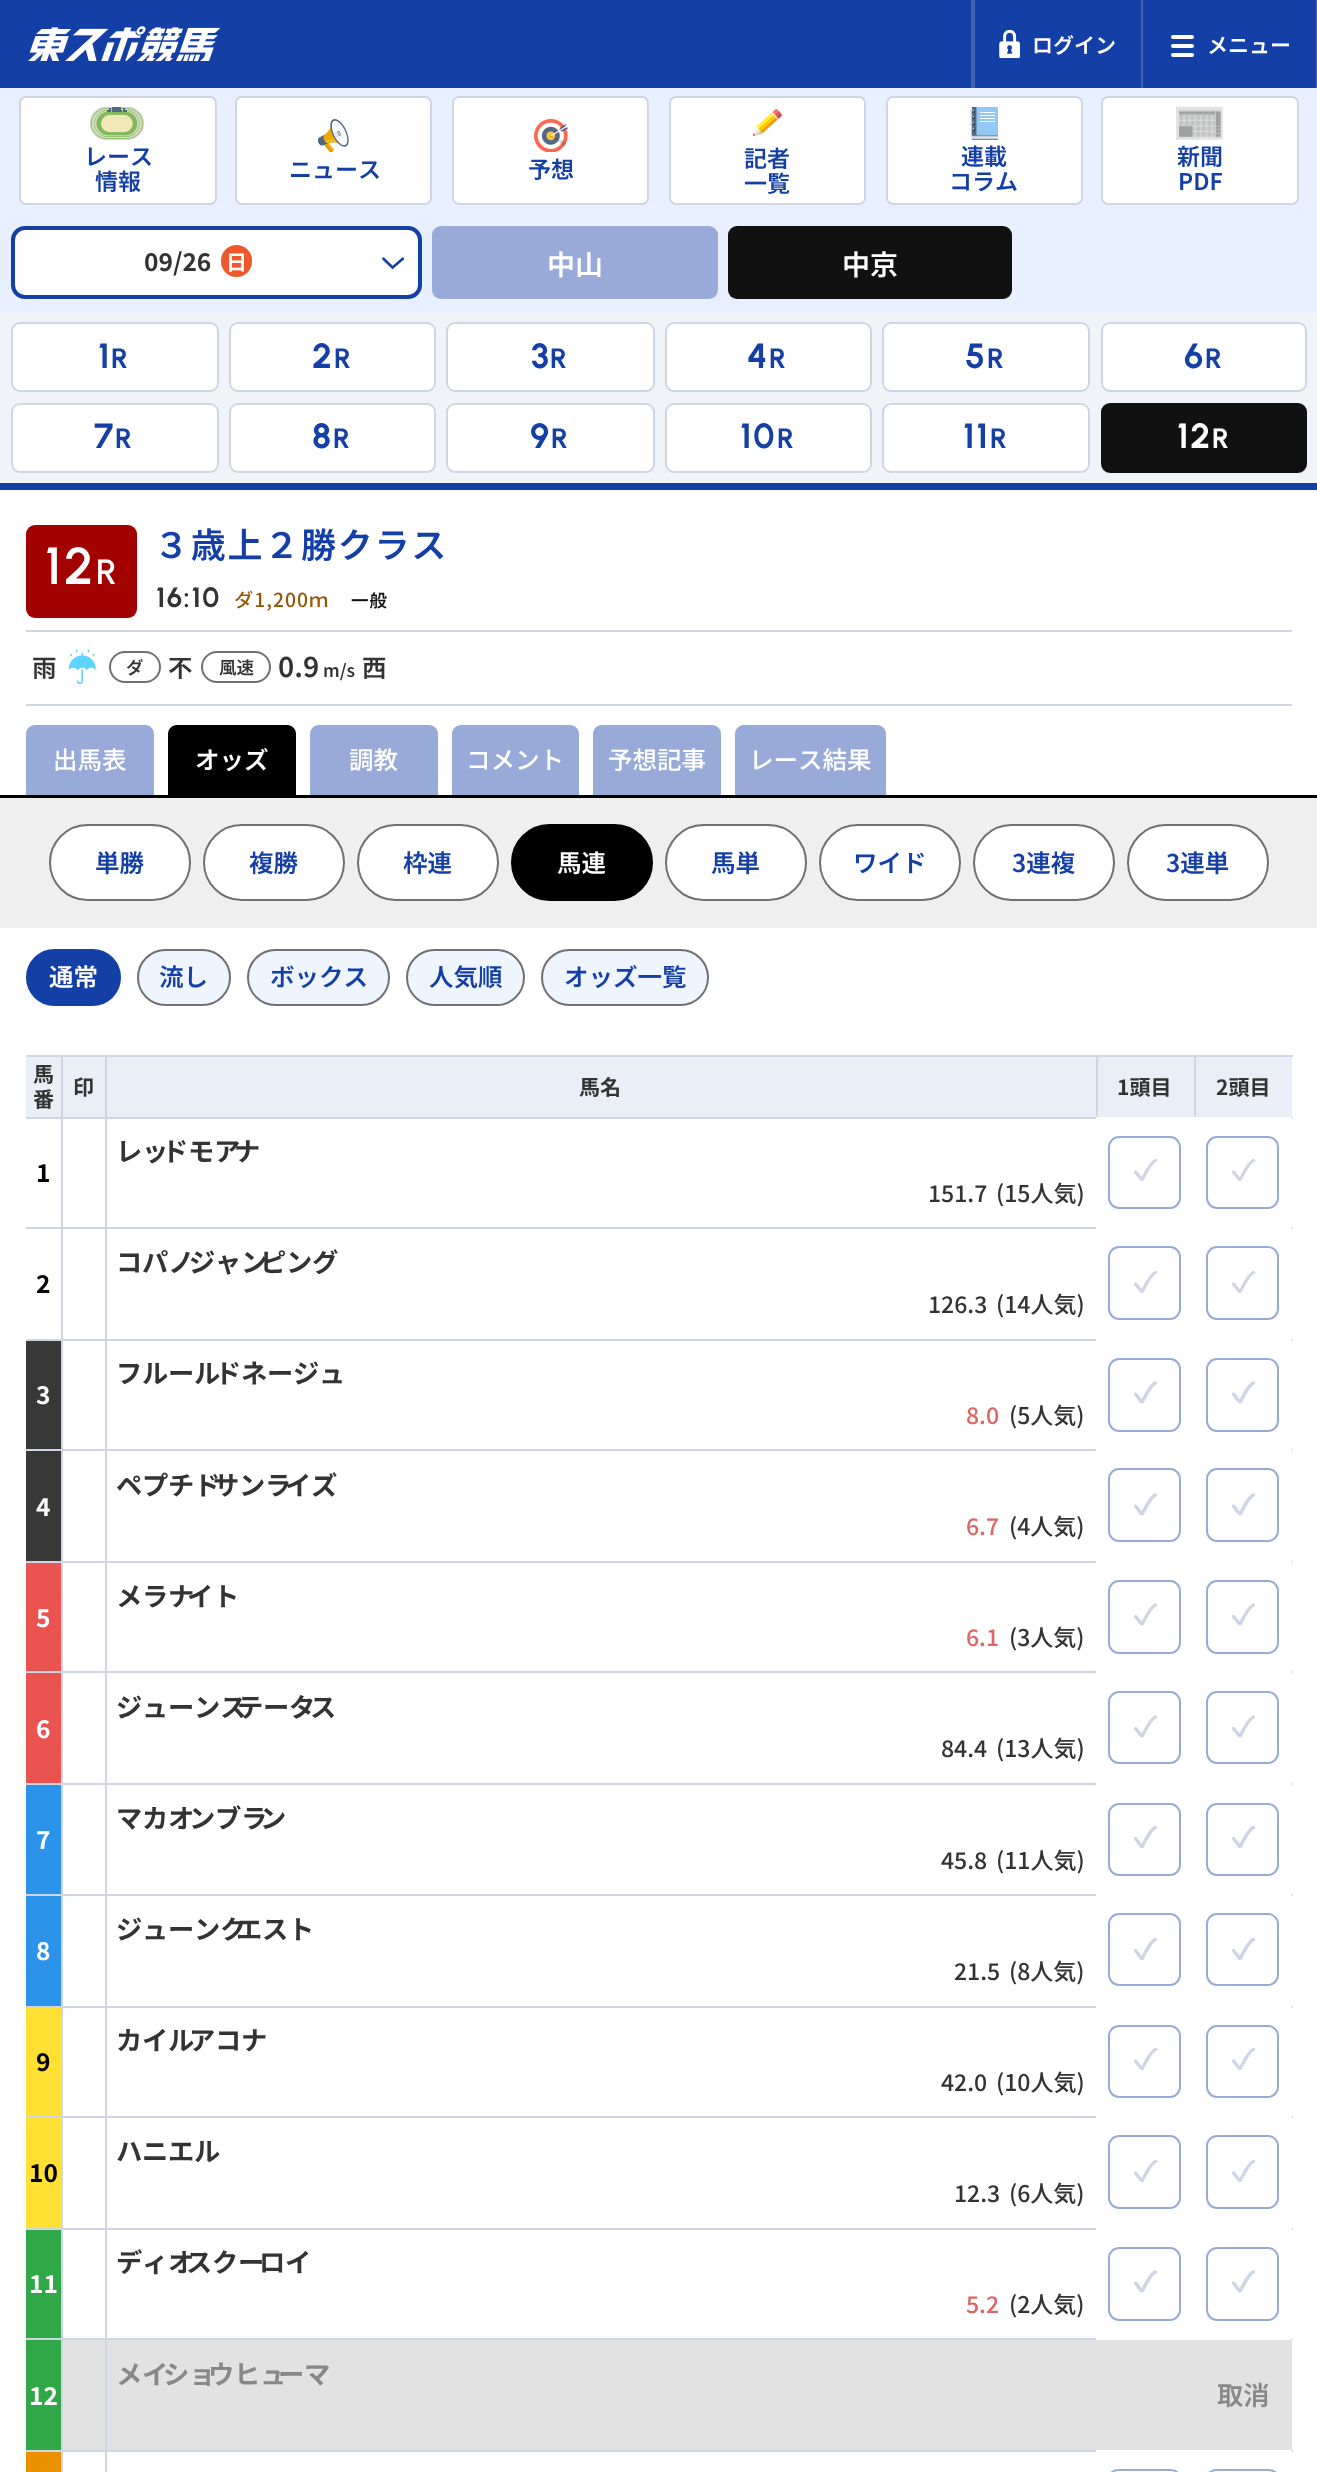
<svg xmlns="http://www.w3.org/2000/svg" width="1317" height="2472">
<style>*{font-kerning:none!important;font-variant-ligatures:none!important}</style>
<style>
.a{font:600 21px Noto Sans JP;fill:#fff}
.b{font:600 23px Noto Sans JP;fill:#133fa6}
.c{font:bold 24.5px Noto Sans JP;fill:#333}
.d{font:bold 21px Noto Sans JP;fill:#fff}
.e{font:600 28px Noto Sans JP;fill:#fff}
.f{font:bold 35px Urbanist;letter-spacing:1.75px;fill:#133fa6}
.g{font:bold 28px Urbanist;letter-spacing:1.75px;fill:#133fa6}
.h{font:bold 35px Urbanist;letter-spacing:1.75px;fill:#fff}
.i{font:bold 28px Urbanist;letter-spacing:1.75px;fill:#fff}
.j{font:600 52px Urbanist;letter-spacing:3px;fill:#fff}
.k{font:600 35px Urbanist;letter-spacing:1.75px;fill:#fff}
.l{font:600 35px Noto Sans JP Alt;letter-spacing:1.75px;fill:#133fa6}
.m{font:bold 28px Urbanist;letter-spacing:1.5px;fill:#333}
.n{font:500 19.25px Noto Sans JP;letter-spacing:1px;fill:#955702}
.o{font:600 17.5px Noto Sans JP;letter-spacing:1px;fill:#111}
.p{font:600 24.5px Noto Sans JP;fill:#333}
.q{font:600 17.5px Noto Sans JP;fill:#333}
.r{font:600 28px Noto Sans JP;fill:#333}
.s{font:500 24.5px Noto Sans JP;fill:#fff}
.t{font:600 24.5px Noto Sans JP;fill:#fff}
.u{font:600 24.5px Noto Sans JP;fill:#133fa6}
.v{font:bold 21px Noto Sans JP;fill:#333}
.w{font:bold 24.5px Noto Sans JP;fill:#000}
.x{font:bold 26.25px Noto Sans JP;letter-spacing:-0.25px;fill:#333}
.y{font:500 23px Noto Sans JP;fill:#333}
.z{font:bold 24.5px Noto Sans JP;fill:#fff}
.a1{font:500 23px Noto Sans JP;fill:#de6565}
.b1{font:bold 26.25px Noto Sans JP;letter-spacing:-0.25px;fill:#888}
.c1{font:600 26.25px Noto Sans JP;fill:#888}
</style>
<rect width="100%" height="100%" fill="#fff"/>
<path fill="#133fa6" d="M0 0h1316v88H0z"/>
<path fill="#4265b8" d="M1316 0h1v88H1316z"/>
<image href="1.png" x="28" y="26" width="193" height="35"/>
<path fill="#3f61b2" d="M971 0h4v88H971z"/>
<image href="2.png" x="999" y="30" width="21" height="28"/>
<path fill="#3f61b2" d="M1141 0h2v88H1141z"/>
<rect fill="#fff" x="1171" y="35" width="23" height="4" rx="2"/>
<rect fill="#fff" x="1171" y="44" width="23" height="4" rx="2"/>
<rect fill="#fff" x="1171" y="53" width="23" height="4" rx="2"/>
<path fill="#e8efff" d="M0 88h1317v126H0z"/>
<rect fill="#fff" stroke="#cfd5e3" stroke-width="2" x="20" y="97" width="196" height="107" rx="6"/>
<image href="3.png" x="89" y="107" width="55" height="33"/>
<rect fill="#fff" stroke="#cfd5e3" stroke-width="2" x="236" y="97" width="195" height="107" rx="6"/>
<image href="4.png" x="318" y="119" width="31" height="33"/>
<rect fill="#fff" stroke="#cfd5e3" stroke-width="2" x="453" y="97" width="195" height="107" rx="6"/>
<image href="5.png" x="534" y="119" width="34" height="33"/>
<rect fill="#fff" stroke="#cfd5e3" stroke-width="2" x="670" y="97" width="195" height="107" rx="6"/>
<image href="6.png" x="753" y="109" width="29" height="27"/>
<rect fill="#fff" stroke="#cfd5e3" stroke-width="2" x="887" y="97" width="195" height="107" rx="6"/>
<image href="7.png" x="970" y="107" width="28" height="33"/>
<rect fill="#fff" stroke="#cfd5e3" stroke-width="2" x="1102" y="97" width="196" height="107" rx="6"/>
<image href="8.png" x="1176" y="106" width="47" height="34"/>
<path fill="#133fa6" d="M0 483h1317v7H0z"/>
<path fill="#e8efff" d="M0 214h1317v98H0z"/>
<rect fill="#fff" stroke="#133fa6" stroke-width="4" x="13" y="228" width="407" height="69" rx="12"/>
<rect fill="#ed592c" x="221" y="245" width="31" height="32" rx="15.5"/>
<image href="9.png" x="382" y="257" width="23" height="13"/>
<rect fill="#98abd8" x="432" y="226" width="286" height="73" rx="9"/>
<rect fill="#111" x="728" y="226" width="284" height="73" rx="9"/>
<path fill="#f0f3f8" d="M0 312h1317v171H0z"/>
<rect fill="#fff" stroke="#cfd5e3" stroke-width="2" x="12" y="323" width="206" height="68" rx="8"/>
<rect fill="#fff" stroke="#cfd5e3" stroke-width="2" x="230" y="323" width="205" height="68" rx="8"/>
<rect fill="#fff" stroke="#cfd5e3" stroke-width="2" x="447" y="323" width="207" height="68" rx="8"/>
<rect fill="#fff" stroke="#cfd5e3" stroke-width="2" x="666" y="323" width="205" height="68" rx="8"/>
<rect fill="#fff" stroke="#cfd5e3" stroke-width="2" x="883" y="323" width="206" height="68" rx="8"/>
<rect fill="#fff" stroke="#cfd5e3" stroke-width="2" x="1102" y="323" width="204" height="68" rx="8"/>
<rect fill="#fff" stroke="#cfd5e3" stroke-width="2" x="12" y="404" width="206" height="68" rx="8"/>
<rect fill="#fff" stroke="#cfd5e3" stroke-width="2" x="230" y="404" width="205" height="68" rx="8"/>
<rect fill="#fff" stroke="#cfd5e3" stroke-width="2" x="447" y="404" width="207" height="68" rx="8"/>
<rect fill="#fff" stroke="#cfd5e3" stroke-width="2" x="666" y="404" width="205" height="68" rx="8"/>
<rect fill="#fff" stroke="#cfd5e3" stroke-width="2" x="883" y="404" width="206" height="68" rx="8"/>
<rect fill="#111" stroke="#111" stroke-width="2" x="1102" y="404" width="204" height="68" rx="8"/>
<path fill="#cfd5e3" d="M26 630h1266v2H26z"/>
<rect fill="#a20200" x="26" y="525" width="111" height="93" rx="9"/>
<path fill="#cfd5e3" d="M26 704h1266v2H26z"/>
<image href="10.png" x="68" y="649" width="28" height="35"/>
<rect fill="none" stroke="#707070" stroke-width="2" x="110" y="652" width="50" height="30" rx="15"/>
<rect fill="none" stroke="#707070" stroke-width="2" x="202" y="652" width="68" height="30" rx="15"/>
<path fill="#000" d="M0 795h1317v3H0z"/>
<path fill="#98abd8" d="M35 725h110c5 0 9 4 9 9v61h-128v-61c0-5 4-9 9-9z"/>
<path fill="#000" d="M177 725h110c5 0 9 4 9 9v61h-128v-61c0-5 4-9 9-9z"/>
<path fill="#98abd8" d="M319 725h110c5 0 9 4 9 9v61h-128v-61c0-5 4-9 9-9z"/>
<path fill="#98abd8" d="M461 725h109c5 0 9 4 9 9v61h-127v-61c0-5 4-9 9-9z"/>
<path fill="#98abd8" d="M602 725h110c5 0 9 4 9 9v61h-128v-61c0-5 4-9 9-9z"/>
<path fill="#98abd8" d="M744 725h133c5 0 9 4 9 9v61h-151v-61c0-5 4-9 9-9z"/>
<path fill="#efefef" d="M0 798h1317v130H0z"/>
<rect fill="#fff" stroke="#707070" stroke-width="2" x="50" y="825" width="140" height="75" rx="37.5"/>
<rect fill="#fff" stroke="#707070" stroke-width="2" x="204" y="825" width="140" height="75" rx="37.5"/>
<rect fill="#fff" stroke="#707070" stroke-width="2" x="358" y="825" width="140" height="75" rx="37.5"/>
<rect fill="#000" stroke="#000" stroke-width="2" x="512" y="825" width="140" height="75" rx="37.5"/>
<rect fill="#fff" stroke="#707070" stroke-width="2" x="666" y="825" width="140" height="75" rx="37.5"/>
<rect fill="#fff" stroke="#707070" stroke-width="2" x="820" y="825" width="140" height="75" rx="37.5"/>
<rect fill="#fff" stroke="#707070" stroke-width="2" x="974" y="825" width="140" height="75" rx="37.5"/>
<rect fill="#fff" stroke="#707070" stroke-width="2" x="1128" y="825" width="140" height="75" rx="37.5"/>
<rect fill="#133fa6" stroke="#133fa6" stroke-width="2" x="27" y="950" width="93" height="55" rx="27.5"/>
<rect fill="#eff5ff" stroke="#707070" stroke-width="2" x="138" y="950" width="92" height="55" rx="27.5"/>
<rect fill="#eff5ff" stroke="#707070" stroke-width="2" x="248" y="950" width="141" height="55" rx="27.5"/>
<rect fill="#eff5ff" stroke="#707070" stroke-width="2" x="407" y="950" width="117" height="55" rx="27.5"/>
<rect fill="#eff5ff" stroke="#707070" stroke-width="2" x="542" y="950" width="166" height="55" rx="27.5"/>
<path fill="#eaeef7" d="M26 1057h35v60H26z"/>
<path fill="#cfd5e3" d="M1096 1055h197v2H1096z"/>
<path fill="#cfd5e3" d="M105 1117h992v2H105z"/>
<path fill="#cfd5e3" d="M1096 1055h2v63H1096z"/>
<path fill="#cfd5e3" d="M105 1055h992v2H105z"/>
<path fill="#cfd5e3" d="M105 1227h992v2H105z"/>
<path fill="#cfd5e3" d="M105 1339h992v2H105z"/>
<path fill="#cfd5e3" d="M105 1449h992v2H105z"/>
<path fill="#cfd5e3" d="M105 1561h992v2H105z"/>
<path fill="#cfd5e3" d="M105 1671h992v2H105z"/>
<path fill="#cfd5e3" d="M105 1783h992v2H105z"/>
<path fill="#cfd5e3" d="M105 1894h992v2H105z"/>
<path fill="#cfd5e3" d="M105 2006h992v2H105z"/>
<path fill="#cfd5e3" d="M105 2116h992v2H105z"/>
<path fill="#cfd5e3" d="M105 2228h992v2H105z"/>
<path fill="#cfd5e3" d="M105 2338h992v2H105z"/>
<path fill="#cfd5e3" d="M105 2450h992v2H105z"/>
<path fill="#cfd5e3" d="M105 2450h2v22H105z"/>
<path fill="#cfd5e3" d="M61 2450h46v2H61z"/>
<path fill="#cfd5e3" d="M105 2338h2v114H105z"/>
<path fill="#cfd5e3" d="M61 2338h46v2H61z"/>
<path fill="#cfd5e3" d="M105 2228h2v112H105z"/>
<path fill="#cfd5e3" d="M61 2228h46v2H61z"/>
<path fill="#cfd5e3" d="M105 2116h2v114H105z"/>
<path fill="#cfd5e3" d="M61 2116h46v2H61z"/>
<path fill="#cfd5e3" d="M105 2006h2v112H105z"/>
<path fill="#cfd5e3" d="M61 2006h46v2H61z"/>
<path fill="#cfd5e3" d="M105 1894h2v113H105z"/>
<path fill="#cfd5e3" d="M61 1894h46v2H61z"/>
<path fill="#cfd5e3" d="M105 1783h2v112H105z"/>
<path fill="#cfd5e3" d="M61 1783h46v2H61z"/>
<path fill="#cfd5e3" d="M105 1671h2v114H105z"/>
<path fill="#cfd5e3" d="M61 1671h46v2H61z"/>
<path fill="#cfd5e3" d="M105 1561h2v112H105z"/>
<path fill="#cfd5e3" d="M61 1561h46v2H61z"/>
<path fill="#cfd5e3" d="M105 1449h2v114H105z"/>
<path fill="#cfd5e3" d="M61 1449h46v2H61z"/>
<path fill="#cfd5e3" d="M105 1339h2v112H105z"/>
<path fill="#cfd5e3" d="M61 1339h46v2H61z"/>
<path fill="#cfd5e3" d="M105 1227h2v114H105z"/>
<path fill="#cfd5e3" d="M61 1227h46v2H61z"/>
<path fill="#cfd5e3" d="M105 1117h2v112H105z"/>
<path fill="#cfd5e3" d="M61 1117h46v2H61z"/>
<path fill="#cfd5e3" d="M105 1055h2v63H105z"/>
<path fill="#cfd5e3" d="M61 1055h46v2H61z"/>
<path fill="#cfd5e3" d="M61 2450h2v22H61z"/>
<path fill="#cfd5e3" d="M26 2450h37v2H26z"/>
<path fill="#cfd5e3" d="M61 2338h2v114H61z"/>
<path fill="#cfd5e3" d="M26 2338h37v2H26z"/>
<path fill="#cfd5e3" d="M61 2228h2v112H61z"/>
<path fill="#cfd5e3" d="M26 2228h37v2H26z"/>
<path fill="#cfd5e3" d="M61 2116h2v114H61z"/>
<path fill="#cfd5e3" d="M26 2116h37v2H26z"/>
<path fill="#cfd5e3" d="M61 2006h2v112H61z"/>
<path fill="#cfd5e3" d="M26 2006h37v2H26z"/>
<path fill="#cfd5e3" d="M61 1894h2v113H61z"/>
<path fill="#cfd5e3" d="M26 1894h37v2H26z"/>
<path fill="#cfd5e3" d="M61 1783h2v112H61z"/>
<path fill="#cfd5e3" d="M26 1783h37v2H26z"/>
<path fill="#cfd5e3" d="M61 1671h2v114H61z"/>
<path fill="#cfd5e3" d="M26 1671h37v2H26z"/>
<path fill="#cfd5e3" d="M61 1561h2v112H61z"/>
<path fill="#cfd5e3" d="M26 1561h37v2H26z"/>
<path fill="#cfd5e3" d="M61 1449h2v114H61z"/>
<path fill="#cfd5e3" d="M26 1449h37v2H26z"/>
<path fill="#cfd5e3" d="M61 1339h2v112H61z"/>
<path fill="#cfd5e3" d="M26 1339h37v2H26z"/>
<path fill="#cfd5e3" d="M61 1227h2v114H61z"/>
<path fill="#cfd5e3" d="M26 1227h37v2H26z"/>
<path fill="#cfd5e3" d="M61 1117h2v112H61z"/>
<path fill="#cfd5e3" d="M26 1117h37v2H26z"/>
<path fill="#cfd5e3" d="M61 1055h2v63H61z"/>
<path fill="#cfd5e3" d="M26 1055h37v2H26z"/>
<path fill="#eaeef7" d="M63 1057h42v60H63z"/>
<path fill="#eaeef7" d="M107 1057h989v60H107z"/>
<path fill="#eaeef7" d="M1098 1057h96v60H1098z"/>
<path fill="#cfd5e3" d="M1194 1055h2v63H1194z"/>
<path fill="#eaeef7" d="M1196 1057h96v60H1196z"/>
<path fill="#fff" d="M1096 1117h2v112H1096z"/>
<rect fill="none" stroke="#98abd8" stroke-width="2" x="1109" y="1137" width="71" height="71" rx="10"/>
<path fill="none" stroke="#cfd5e3" stroke-width="3.4" stroke-linecap="round" stroke-linejoin="bevel" d="M1135.5 1172l6.5 8c0 0 9-18 13.5-19.5"/>
<path fill="#cfd5e3" d="M1292 1117h1v2H1292z"/>
<path fill="#fff" d="M1194 1117h2v1H1194z"/>
<rect fill="none" stroke="#98abd8" stroke-width="2" x="1207" y="1137" width="71" height="71" rx="10"/>
<path fill="none" stroke="#cfd5e3" stroke-width="3.4" stroke-linecap="round" stroke-linejoin="bevel" d="M1233.5 1172l6.5 8c0 0 9-18 13.5-19.5"/>
<rect fill="none" stroke="#98abd8" stroke-width="2" x="1109" y="1247" width="71" height="72" rx="10"/>
<path fill="none" stroke="#cfd5e3" stroke-width="3.4" stroke-linecap="round" stroke-linejoin="bevel" d="M1135.5 1284l6.5 8c0 0 9-18 13.5-19.5"/>
<path fill="#cfd5e3" d="M1292 1227h1v2H1292z"/>
<rect fill="none" stroke="#98abd8" stroke-width="2" x="1207" y="1247" width="71" height="72" rx="10"/>
<path fill="none" stroke="#cfd5e3" stroke-width="3.4" stroke-linecap="round" stroke-linejoin="bevel" d="M1233.5 1284l6.5 8c0 0 9-18 13.5-19.5"/>
<path fill="#383838" d="M26 1341h35v108H26z"/>
<path fill="#fff" d="M1096 1339h1v112H1096z"/>
<rect fill="none" stroke="#98abd8" stroke-width="2" x="1109" y="1359" width="71" height="72" rx="10"/>
<path fill="none" stroke="#cfd5e3" stroke-width="3.4" stroke-linecap="round" stroke-linejoin="bevel" d="M1135.5 1394l6.5 8.5c0 0 9-18.5 13.5-19.5"/>
<path fill="#cfd5e3" d="M1292 1339h1v2H1292z"/>
<rect fill="none" stroke="#98abd8" stroke-width="2" x="1207" y="1359" width="71" height="72" rx="10"/>
<path fill="none" stroke="#cfd5e3" stroke-width="3.4" stroke-linecap="round" stroke-linejoin="bevel" d="M1233.5 1394l6.5 8.5c0 0 9-18.5 13.5-19.5"/>
<path fill="#383838" d="M26 1451h35v110H26z"/>
<rect fill="none" stroke="#98abd8" stroke-width="2" x="1109" y="1469" width="71" height="72" rx="10"/>
<path fill="none" stroke="#cfd5e3" stroke-width="3.4" stroke-linecap="round" stroke-linejoin="bevel" d="M1135.5 1506l6.5 8.5c0 0 9-18.5 13.5-19.5"/>
<path fill="#cfd5e3" d="M1292 1449h1v2H1292z"/>
<rect fill="none" stroke="#98abd8" stroke-width="2" x="1207" y="1469" width="71" height="72" rx="10"/>
<path fill="none" stroke="#cfd5e3" stroke-width="3.4" stroke-linecap="round" stroke-linejoin="bevel" d="M1233.5 1506l6.5 8.5c0 0 9-18.5 13.5-19.5"/>
<path fill="#eb5351" d="M26 1563h35v108H26z"/>
<path fill="#fff" d="M1096 1561h1v112H1096z"/>
<rect fill="none" stroke="#98abd8" stroke-width="2" x="1109" y="1581" width="71" height="72" rx="10"/>
<path fill="none" stroke="#cfd5e3" stroke-width="3.4" stroke-linecap="round" stroke-linejoin="bevel" d="M1135.5 1616.5l6.5 8c0 0 9-18 13.5-19.5"/>
<path fill="#cfd5e3" d="M1292 1561h1v2H1292z"/>
<rect fill="none" stroke="#98abd8" stroke-width="2" x="1207" y="1581" width="71" height="72" rx="10"/>
<path fill="none" stroke="#cfd5e3" stroke-width="3.4" stroke-linecap="round" stroke-linejoin="bevel" d="M1233.5 1616.5l6.5 8c0 0 9-18 13.5-19.5"/>
<path fill="#eb5351" d="M26 1673h35v110H26z"/>
<rect fill="none" stroke="#98abd8" stroke-width="2" x="1109" y="1692" width="71" height="71" rx="10"/>
<path fill="none" stroke="#cfd5e3" stroke-width="3.4" stroke-linecap="round" stroke-linejoin="bevel" d="M1135.5 1728.5l6.5 8c0 0 9-18 13.5-19.5"/>
<path fill="#cfd5e3" d="M1292 1671h1v2H1292z"/>
<rect fill="none" stroke="#98abd8" stroke-width="2" x="1207" y="1692" width="71" height="71" rx="10"/>
<path fill="none" stroke="#cfd5e3" stroke-width="3.4" stroke-linecap="round" stroke-linejoin="bevel" d="M1233.5 1728.5l6.5 8c0 0 9-18 13.5-19.5"/>
<path fill="#2c93eb" d="M26 1785h35v109H26z"/>
<path fill="#fff" d="M1096 1783h1v113H1096z"/>
<rect fill="none" stroke="#98abd8" stroke-width="2" x="1109" y="1804" width="71" height="71" rx="10"/>
<path fill="none" stroke="#cfd5e3" stroke-width="3.4" stroke-linecap="round" stroke-linejoin="bevel" d="M1135.5 1838.5l6.5 8.5c0 0 9-18.5 13.5-19.5"/>
<path fill="#cfd5e3" d="M1292 1783h1v2H1292z"/>
<rect fill="none" stroke="#98abd8" stroke-width="2" x="1207" y="1804" width="71" height="71" rx="10"/>
<path fill="none" stroke="#cfd5e3" stroke-width="3.4" stroke-linecap="round" stroke-linejoin="bevel" d="M1233.5 1838.5l6.5 8.5c0 0 9-18.5 13.5-19.5"/>
<path fill="#2c93eb" d="M26 1896h35v110H26z"/>
<rect fill="none" stroke="#98abd8" stroke-width="2" x="1109" y="1914" width="71" height="71" rx="10"/>
<path fill="none" stroke="#cfd5e3" stroke-width="3.4" stroke-linecap="round" stroke-linejoin="bevel" d="M1135.5 1950.5l6.5 8.5c0 0 9-18.5 13.5-19.5"/>
<path fill="#cfd5e3" d="M1292 1894h1v2H1292z"/>
<rect fill="none" stroke="#98abd8" stroke-width="2" x="1207" y="1914" width="71" height="71" rx="10"/>
<path fill="none" stroke="#cfd5e3" stroke-width="3.4" stroke-linecap="round" stroke-linejoin="bevel" d="M1233.5 1950.5l6.5 8.5c0 0 9-18.5 13.5-19.5"/>
<path fill="#ffe033" d="M26 2008h35v108H26z"/>
<path fill="#fff" d="M1096 2006h1v112H1096z"/>
<rect fill="none" stroke="#98abd8" stroke-width="2" x="1109" y="2026" width="71" height="71" rx="10"/>
<path fill="none" stroke="#cfd5e3" stroke-width="3.4" stroke-linecap="round" stroke-linejoin="bevel" d="M1135.5 2061l6.5 8c0 0 9-18 13.5-19.5"/>
<path fill="#cfd5e3" d="M1292 2006h1v2H1292z"/>
<rect fill="none" stroke="#98abd8" stroke-width="2" x="1207" y="2026" width="71" height="71" rx="10"/>
<path fill="none" stroke="#cfd5e3" stroke-width="3.4" stroke-linecap="round" stroke-linejoin="bevel" d="M1233.5 2061l6.5 8c0 0 9-18 13.5-19.5"/>
<path fill="#ffe033" d="M26 2118h35v110H26z"/>
<rect fill="none" stroke="#98abd8" stroke-width="2" x="1109" y="2136" width="71" height="72" rx="10"/>
<path fill="none" stroke="#cfd5e3" stroke-width="3.4" stroke-linecap="round" stroke-linejoin="bevel" d="M1135.5 2173l6.5 8c0 0 9-18 13.5-19.5"/>
<path fill="#cfd5e3" d="M1292 2116h1v2H1292z"/>
<rect fill="none" stroke="#98abd8" stroke-width="2" x="1207" y="2136" width="71" height="72" rx="10"/>
<path fill="none" stroke="#cfd5e3" stroke-width="3.4" stroke-linecap="round" stroke-linejoin="bevel" d="M1233.5 2173l6.5 8c0 0 9-18 13.5-19.5"/>
<path fill="#31a848" d="M26 2230h35v108H26z"/>
<path fill="#fff" d="M1096 2228h1v112H1096z"/>
<rect fill="none" stroke="#98abd8" stroke-width="2" x="1109" y="2248" width="71" height="72" rx="10"/>
<path fill="none" stroke="#cfd5e3" stroke-width="3.4" stroke-linecap="round" stroke-linejoin="bevel" d="M1135.5 2283l6.5 8.5c0 0 9-18.5 13.5-19.5"/>
<path fill="#cfd5e3" d="M1292 2228h1v2H1292z"/>
<rect fill="none" stroke="#98abd8" stroke-width="2" x="1207" y="2248" width="71" height="72" rx="10"/>
<path fill="none" stroke="#cfd5e3" stroke-width="3.4" stroke-linecap="round" stroke-linejoin="bevel" d="M1233.5 2283l6.5 8.5c0 0 9-18.5 13.5-19.5"/>
<path fill="#e2e2e2" d="M63 2340h42v110H63z"/>
<path fill="#e2e2e2" d="M107 2340h989v110H107z"/>
<path fill="#e2e2e2" d="M1096 2340h196v110H1096z"/>
<path fill="#31a848" d="M26 2340h35v110H26z"/>
<path fill="#cfd5e3" d="M1292 2338h1v2H1292z"/>
<path fill="#eb9100" d="M26 2452h35v20H26z"/>
<path fill="#fff" d="M1096 2450h1v2H1096z"/>
<rect fill="none" stroke="#98abd8" stroke-width="2" x="1109" y="2470" width="71" height="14" rx="10"/>
<path fill="#cfd5e3" d="M1292 2450h1v2H1292z"/>
<rect fill="none" stroke="#98abd8" stroke-width="2" x="1207" y="2470" width="71" height="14" rx="10"/>
<text class="a" x="1032" y="53">ログイン</text>
<text class="a" x="1207" y="53">メニュー</text>
<text class="b" x="84" y="165">レース</text>
<text class="b" x="95" y="190">情報</text>
<text class="b" x="289" y="178">ニュース</text>
<text class="b" x="528" y="178">予想</text>
<text class="b" x="744" y="167">記者</text>
<text class="b" x="744" y="192">一覧</text>
<text class="b" x="961" y="165">連載</text>
<text class="b" x="949" y="190">コラム</text>
<text class="b" x="1177" y="165">新聞</text>
<text class="b" x="1178" y="190">PDF</text>
<text class="c" x="144" y="271">09/26</text>
<text class="d" x="226" y="270">日</text>
<text class="e" x="547" y="275">中山</text>
<text class="e" x="842" y="275">中京</text>
<text class="f" x="98" y="368">1</text>
<text class="g" x="111" y="368">R</text>
<text class="f" x="312" y="368">2</text>
<text class="g" x="334" y="368">R</text>
<text class="f" x="531" y="368">3</text>
<text class="g" x="550" y="368">R</text>
<text class="f" x="747" y="368">4</text>
<text class="g" x="769" y="368">R</text>
<text class="f" x="965" y="368">5</text>
<text class="g" x="987" y="368">R</text>
<text class="f" x="1184" y="368">6</text>
<text class="g" x="1205" y="368">R</text>
<text class="f" x="94" y="448">7</text>
<text class="g" x="115" y="448">R</text>
<text class="f" x="312" y="448">8</text>
<text class="g" x="333" y="448">R</text>
<text class="f" x="530" y="448">9</text>
<text class="g" x="551" y="448">R</text>
<text class="f" x="740" y="448">10</text>
<text class="g" x="777" y="448">R</text>
<text class="f" x="963" y="448">11</text>
<text class="g" x="990" y="448">R</text>
<text class="h" x="1177" y="448">12</text>
<text class="i" x="1212" y="448">R</text>
<text class="j" x="45" y="584">12</text>
<text class="k" x="96" y="584">R</text>
<text class="l" x="154" y="558">３歳上２勝クラス</text>
<text class="m" x="156" y="607">16:10</text>
<text class="n" x="234" y="607">ダ1,200ｍ</text>
<text class="o" x="351" y="607">一般</text>
<text class="p" x="32" y="677">雨</text>
<text class="q" x="126" y="674">ダ</text>
<text class="p" x="168" y="677">不</text>
<text class="q" x="219" y="674">風速</text>
<text class="r" x="278" y="677">0.9</text>
<text class="q" x="323" y="677">m/s</text>
<text class="p" x="362" y="677">西</text>
<text class="s" x="53" y="769">出馬表</text>
<text class="t" x="195" y="769">オッズ</text>
<text class="s" x="349" y="769">調教</text>
<text class="s" x="466" y="769">コメント</text>
<text class="s" x="608" y="769">予想記事</text>
<text class="s" x="749" y="769">レース結果</text>
<text class="u" x="95" y="872">単勝</text>
<text class="u" x="249" y="872">複勝</text>
<text class="u" x="403" y="872">枠連</text>
<text class="t" x="557" y="872">馬連</text>
<text class="u" x="711" y="872">馬単</text>
<text class="u" x="853" y="872">ワイド</text>
<text class="u" x="1012" y="872">3連複</text>
<text class="u" x="1166" y="872">3連単</text>
<text class="t" x="49" y="986">通常</text>
<text class="u" x="159" y="986">流し</text>
<text class="u" x="270" y="986">ボックス</text>
<text class="u" x="429" y="986">人気順</text>
<text class="u" x="564" y="986">オッズ一覧</text>
<text class="v" x="33" y="1082">馬</text>
<text class="v" x="33" y="1107">番</text>
<text class="v" x="73" y="1095">印</text>
<text class="v" x="579" y="1095">馬名</text>
<text class="v" x="1117" y="1095">1頭目</text>
<text class="v" x="1216" y="1095">2頭目</text>
<text class="w" x="36" y="1182">1</text>
<text class="x" x="116" y="1161">レッ</text>
<text class="x" x="162" y="1161">ドモア</text>
<text class="x" x="234" y="1161">ナ</text>
<text class="y" x="928" y="1202">151.7</text>
<text class="y" x="996" y="1202">(15人気)</text>
<text class="w" x="36" y="1293">2</text>
<text class="x" x="116" y="1272">コパノ</text>
<text class="x" x="189" y="1272">ジャン</text>
<text class="x" x="260" y="1272">ピング</text>
<text class="y" x="928" y="1313">126.3</text>
<text class="y" x="996" y="1313">(14人気)</text>
<text class="z" x="36" y="1404">3</text>
<text class="x" x="116" y="1383">フルール</text>
<text class="x" x="215" y="1383">ドネージュ</text>
<text class="a1" x="966" y="1424">8.0</text>
<text class="y" x="1009" y="1424">(5人気)</text>
<text class="z" x="36" y="1516">4</text>
<text class="x" x="116" y="1495">ペプチド</text>
<text class="x" x="213" y="1495">サンラ</text>
<text class="x" x="285" y="1495">イズ</text>
<text class="a1" x="966" y="1535">6.7</text>
<text class="y" x="1009" y="1535">(4人気)</text>
<text class="z" x="36" y="1627">5</text>
<text class="x" x="116" y="1606">メラナ</text>
<text class="x" x="187" y="1606">イト</text>
<text class="a1" x="966" y="1646">6.1</text>
<text class="y" x="1009" y="1646">(3人気)</text>
<text class="z" x="36" y="1738">6</text>
<text class="x" x="116" y="1717">ジューンス</text>
<text class="x" x="237" y="1717">テータ</text>
<text class="x" x="310" y="1717">ス</text>
<text class="y" x="941" y="1757">84.4</text>
<text class="y" x="996" y="1757">(13人気)</text>
<text class="z" x="36" y="1849">7</text>
<text class="x" x="116" y="1828">マカオ</text>
<text class="x" x="189" y="1828">ンブラ</text>
<text class="x" x="260" y="1828">ン</text>
<text class="y" x="941" y="1869">45.8</text>
<text class="y" x="996" y="1869">(11人気)</text>
<text class="z" x="36" y="1960">8</text>
<text class="x" x="116" y="1939">ジューンク</text>
<text class="x" x="236" y="1939">エスト</text>
<text class="y" x="954" y="1980">21.5</text>
<text class="y" x="1009" y="1980">(8人気)</text>
<text class="w" x="36" y="2071">9</text>
<text class="x" x="116" y="2050">カイル</text>
<text class="x" x="189" y="2050">アコナ</text>
<text class="y" x="941" y="2091">42.0</text>
<text class="y" x="996" y="2091">(10人気)</text>
<text class="w" x="29" y="2182">10</text>
<text class="x" x="116" y="2161">ハニエル</text>
<text class="y" x="954" y="2202">12.3</text>
<text class="y" x="1009" y="2202">(6人気)</text>
<text class="z" x="29" y="2293">11</text>
<text class="x" x="116" y="2272">ディオ</text>
<text class="x" x="186" y="2272">スクー</text>
<text class="x" x="259" y="2272">ロイ</text>
<text class="a1" x="966" y="2313">5.2</text>
<text class="y" x="1009" y="2313">(2人気)</text>
<text class="b1" x="116" y="2384">メイ</text>
<text class="b1" x="163" y="2384">ショ</text>
<text class="b1" x="208" y="2384">ウヒュ</text>
<text class="b1" x="278" y="2384">ーマ</text>
<text class="z" x="29" y="2405">12</text>
<text class="c1" x="1217" y="2405">取消</text>
</svg>
